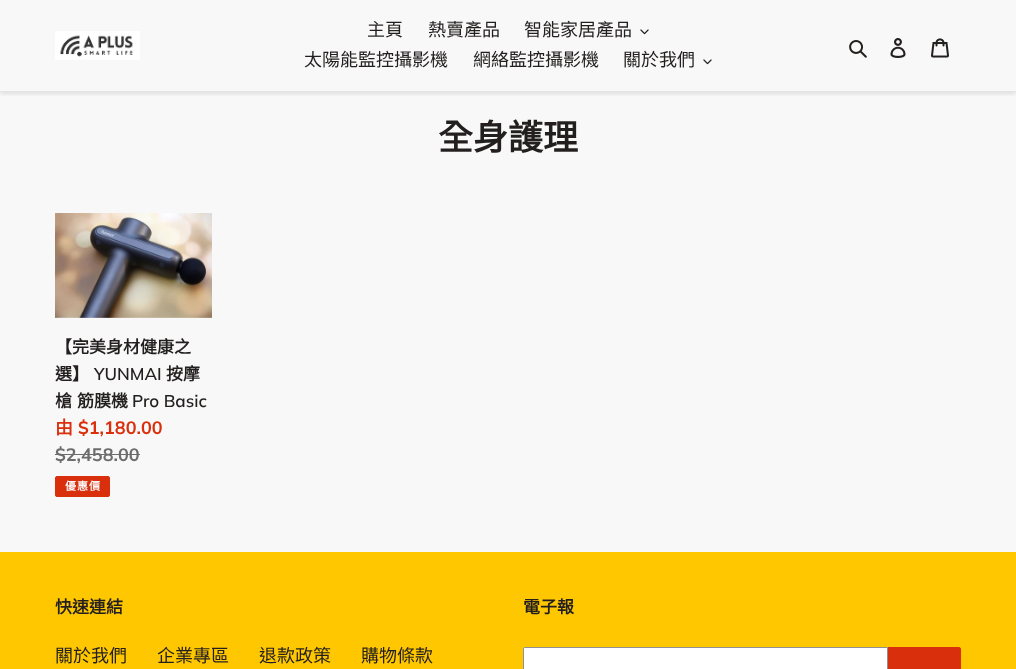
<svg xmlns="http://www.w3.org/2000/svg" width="1016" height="669">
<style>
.a{font:18px Noto Sans CJK TC;fill:#231f1f}
.b{font:bold 35px Noto Sans CJK TC;fill:#231f1f}
.c{font:bold 17px Noto Sans CJK TC;fill:#231f1f}
.d{font:600 17px Muli;fill:#231f1f}
.e{font:bold 18px Noto Sans CJK TC;fill:#da2f0c}
.f{font:bold 18px Muli;fill:#da2f0c}
.g{font:bold 18px Muli;fill:#6d6d6d}
.h{font:bold 11px Noto Sans CJK TC;letter-spacing:1px;fill:#f8f8f8}
</style>
<defs>
<clipPath id="clip1"><path d="M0 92h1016v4H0z"/></clipPath>
</defs>
<rect width="100%" height="100%" fill="#f8f8f8"/>
<g clip-path="url(#clip1)">
<path fill="#0000001a" filter="blur(2px)" d="M0 2h1016v92H0z"/>
</g>
<path fill="#e4e4e4" d="M0 91h1016v1H0z"/>
<image href="1.png" x="55" y="31" width="85" height="29"/>
<image href="2.png" x="640" y="29" width="9" height="6"/>
<image href="2.png" x="703" y="59" width="9" height="6"/>
<image href="3.png" x="849" y="40" width="18" height="18"/>
<image href="4.png" x="890" y="38" width="16" height="20"/>
<image href="5.png" x="931" y="38" width="18" height="20"/>
<image href="6.png" x="55" y="213" width="157" height="105"/>
<path fill="#6d6d6d" d="M55 454h85v1H55z"/>
<rect fill="#da2f0c" stroke="#da2f0c" x="55.5" y="476.5" width="54" height="20" rx="1.5"/>
<path fill="#ffc700" d="M0 552h1016v117H0z"/>
<path fill="#fff" stroke="#909090" d="M525 647.5h362.5v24h-362.5c-1 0-1.5-.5-1.5-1.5v-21c0-1 .5-1.5 1.5-1.5z"/>
<path fill="#da2f0c" d="M888 647h71c1 0 2 1 2 2v20c0 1-1 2-2 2h-71z"/>
<text class="a" x="367" y="36">主頁</text>
<text class="a" x="428" y="36">熱賣產品</text>
<text class="a" x="524" y="36">智能家居產品</text>
<text class="a" x="304" y="66">太陽能監控攝影機</text>
<text class="a" x="473" y="66">網絡監控攝影機</text>
<text class="a" x="623" y="66">關於我們</text>
<text class="b" x="438" y="150">全身護理</text>
<text class="c" x="55" y="353">【完美身材健康之</text>
<text class="c" x="55" y="380">選】</text>
<text class="d" x="94" y="380">YUNMAI</text>
<text class="c" x="166" y="380">按摩</text>
<text class="c" x="55" y="407">槍</text>
<text class="c" x="77" y="407">筋膜機</text>
<text class="d" x="132" y="407">Pro Basic</text>
<text class="e" x="55" y="434">由</text>
<text class="f" x="78" y="434">$1,180.00</text>
<text class="g" x="55" y="461">$2,458.00</text>
<text class="h" x="65" y="490">優惠價</text>
<text class="c" x="55" y="613">快速連結</text>
<text class="a" x="55" y="662">關於我們</text>
<text class="a" x="157" y="662">企業專區</text>
<text class="a" x="259" y="662">退款政策</text>
<text class="a" x="361" y="662">購物條款</text>
<text class="c" x="523" y="613">電子報</text>
</svg>
